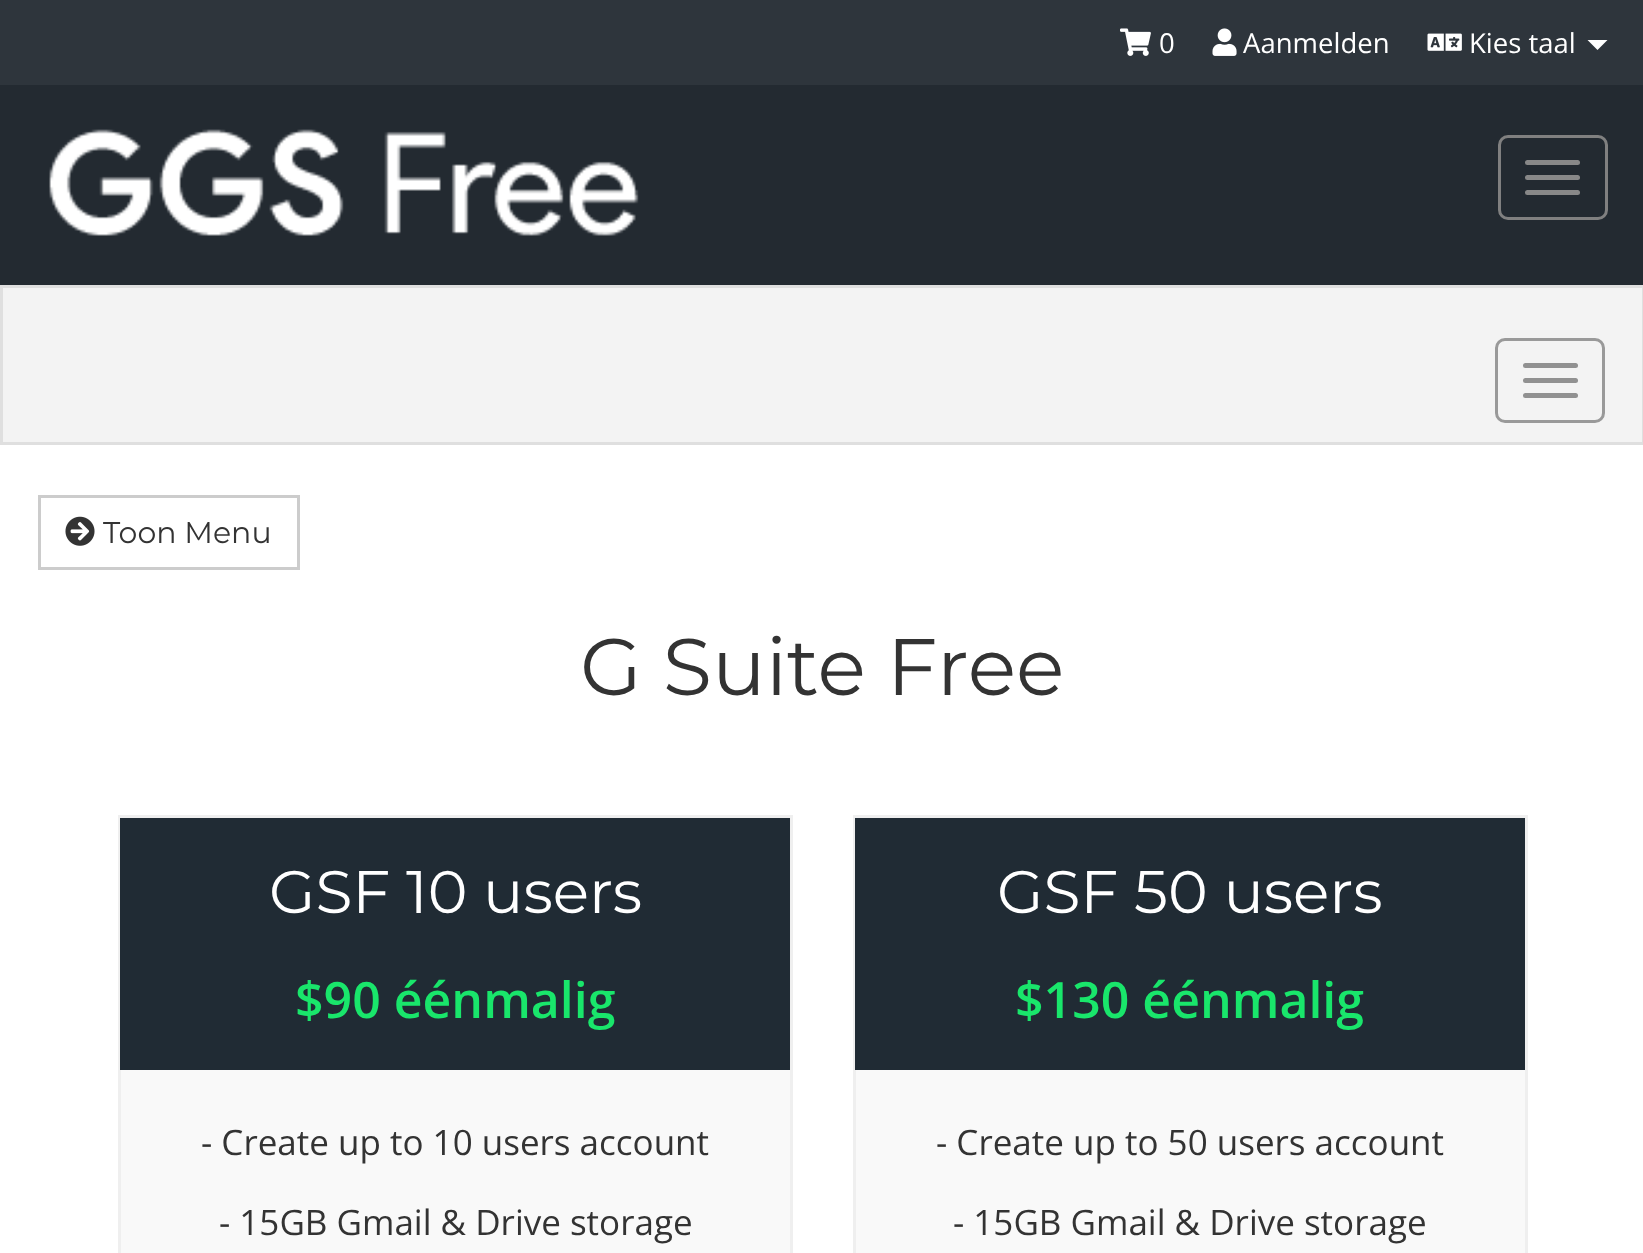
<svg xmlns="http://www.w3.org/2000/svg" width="1643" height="1253">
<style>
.a{font:27.5px Open Sans;fill:#fff}
.b{font:30px Montserrat;fill:#333}
.c{font:80px Montserrat;fill:#333}
.d{font:60px Montserrat;fill:#fff}
.e{font:600 50px Open Sans;fill:#19e66b}
.f{font:35px Open Sans;fill:#333}
</style>
<rect width="100%" height="100%" fill="#fff"/>
<path fill="#2e353c" d="M0 0h1643v85H0z"/>
<image href="1.png" x="1120" y="28" width="31" height="28"/>
<image href="2.png" x="1212" y="28" width="25" height="28"/>
<image href="3.png" x="1427" y="33" width="35" height="18"/>
<path fill="#fff" d="M1587.5 40h20l-10 10z"/>
<path fill="#232a31" d="M0 85h1643v200H0z"/>
<image href="4.png" x="49" y="129" width="590" height="107"/>
<rect fill="none" stroke="#808080" stroke-width="3" x="1499.5" y="136.5" width="107" height="82" rx="8.5"/>
<rect fill="#888" x="1525" y="160" width="55" height="5" rx="2.5"/>
<rect fill="#888" x="1525" y="175" width="55" height="5" rx="2.5"/>
<rect fill="#888" x="1525" y="190" width="55" height="5" rx="2.5"/>
<path fill="#f3f3f3" stroke="#dfdfdf" stroke-width="3" d="M1.5 286.5h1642v157H1.5z"/>
<rect fill="none" stroke="#999" stroke-width="3" x="1496.5" y="339.5" width="107" height="82" rx="8.5"/>
<rect fill="#919191" x="1523" y="363" width="55" height="5" rx="2.5"/>
<rect fill="#919191" x="1523" y="378" width="55" height="5" rx="2.5"/>
<rect fill="#919191" x="1523" y="393" width="55" height="5" rx="2.5"/>
<path fill="none" stroke="#ccc" stroke-width="3" d="M39.5 496.5h259v72H39.5z"/>
<image href="5.png" x="65" y="516" width="30" height="30"/>
<path fill="#f9f9f9" d="M121 1070h669v183H121z"/>
<path fill="none" stroke="#efefef" stroke-width="3" d="M119.5 816.5h672v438H119.5z"/>
<path fill="#202b34" d="M120 818h670v252H120z"/>
<path fill="#f9f9f9" d="M856 1070h669v183H856z"/>
<path fill="none" stroke="#efefef" stroke-width="3" d="M854.5 816.5h672v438H854.5z"/>
<path fill="#202b34" d="M855 818h670v252H855z"/>
<text class="a" x="1159" y="53">0</text>
<text class="a" x="1243" y="53">Aanmelden</text>
<text class="a" x="1469" y="53">Kies taal</text>
<text class="b" x="103" y="543">Toon Menu</text>
<text class="c" x="580" y="695">G Suite Free</text>
<text class="d" x="269" y="913">GSF 10 users</text>
<text class="e" x="295" y="1018">$90 éénmalig</text>
<text class="f" x="201" y="1155">- Create up to 10 users account</text>
<text class="f" x="219" y="1235">- 15GB Gmail &amp; Drive storage</text>
<text class="d" x="997" y="913">GSF 50 users</text>
<text class="e" x="1015" y="1018">$130 éénmalig</text>
<text class="f" x="936" y="1155">- Create up to 50 users account</text>
<text class="f" x="953" y="1235">- 15GB Gmail &amp; Drive storage</text>
</svg>
